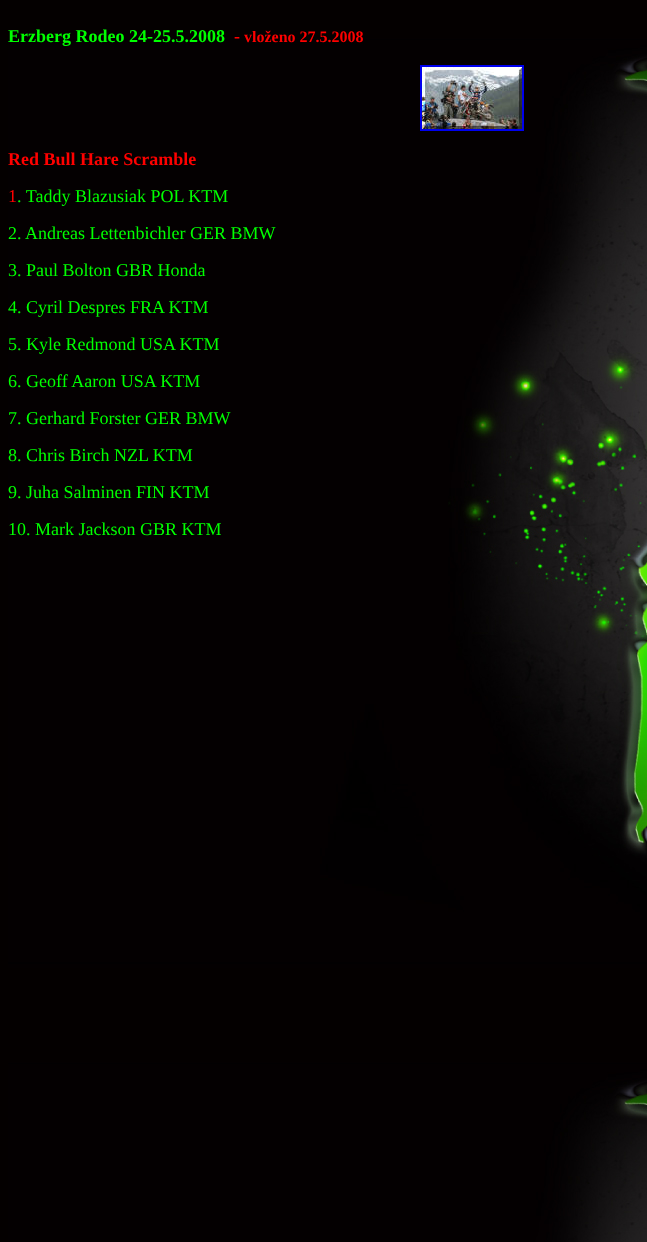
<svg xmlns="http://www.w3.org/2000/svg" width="647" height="1242">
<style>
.a{font:bold 18px Liberation Serif;fill:#0f0}
.b{font:bold 18px Liberation Serif;fill:#f00}
.c{font:bold 16px Liberation Serif;fill:#f00}
.d{font:18px Liberation Serif;fill:#f00}
.e{font:18px Liberation Serif;fill:#0f0}
</style>
<rect width="100%" height="100%" fill="#fff"/>
<image href="1.png" x="0" y="0" width="647" height="1242"/>
<path fill="none" stroke="#00e" stroke-width="2" d="M421 66h102v64H421z"/>
<image href="2.png" x="422" y="67" width="100" height="62"/>
<text class="a" x="8" y="42">Erzberg Rodeo 24-25.5.2008</text>
<text class="b" x="234" y="42">-</text>
<text class="c" x="244" y="42">vloženo 27.5.2008</text>
<text class="b" x="8" y="165">Red Bull Hare Scramble</text>
<text class="d" x="8" y="202">1</text>
<text class="e" x="17" y="202">. Taddy Blazusiak POL KTM</text>
<text class="e" x="8" y="239">2. Andreas Lettenbichler GER BMW</text>
<text class="e" x="8" y="276">3. Paul Bolton GBR Honda</text>
<text class="e" x="8" y="313">4. Cyril Despres FRA KTM</text>
<text class="e" x="8" y="350">5. Kyle Redmond USA KTM</text>
<text class="e" x="8" y="387">6. Geoff Aaron USA KTM</text>
<text class="e" x="8" y="424">7. Gerhard Forster GER BMW</text>
<text class="e" x="8" y="461">8. Chris Birch NZL KTM</text>
<text class="e" x="8" y="498">9. Juha Salminen FIN KTM</text>
<text class="e" x="8" y="535">10. Mark Jackson GBR KTM</text>
</svg>
